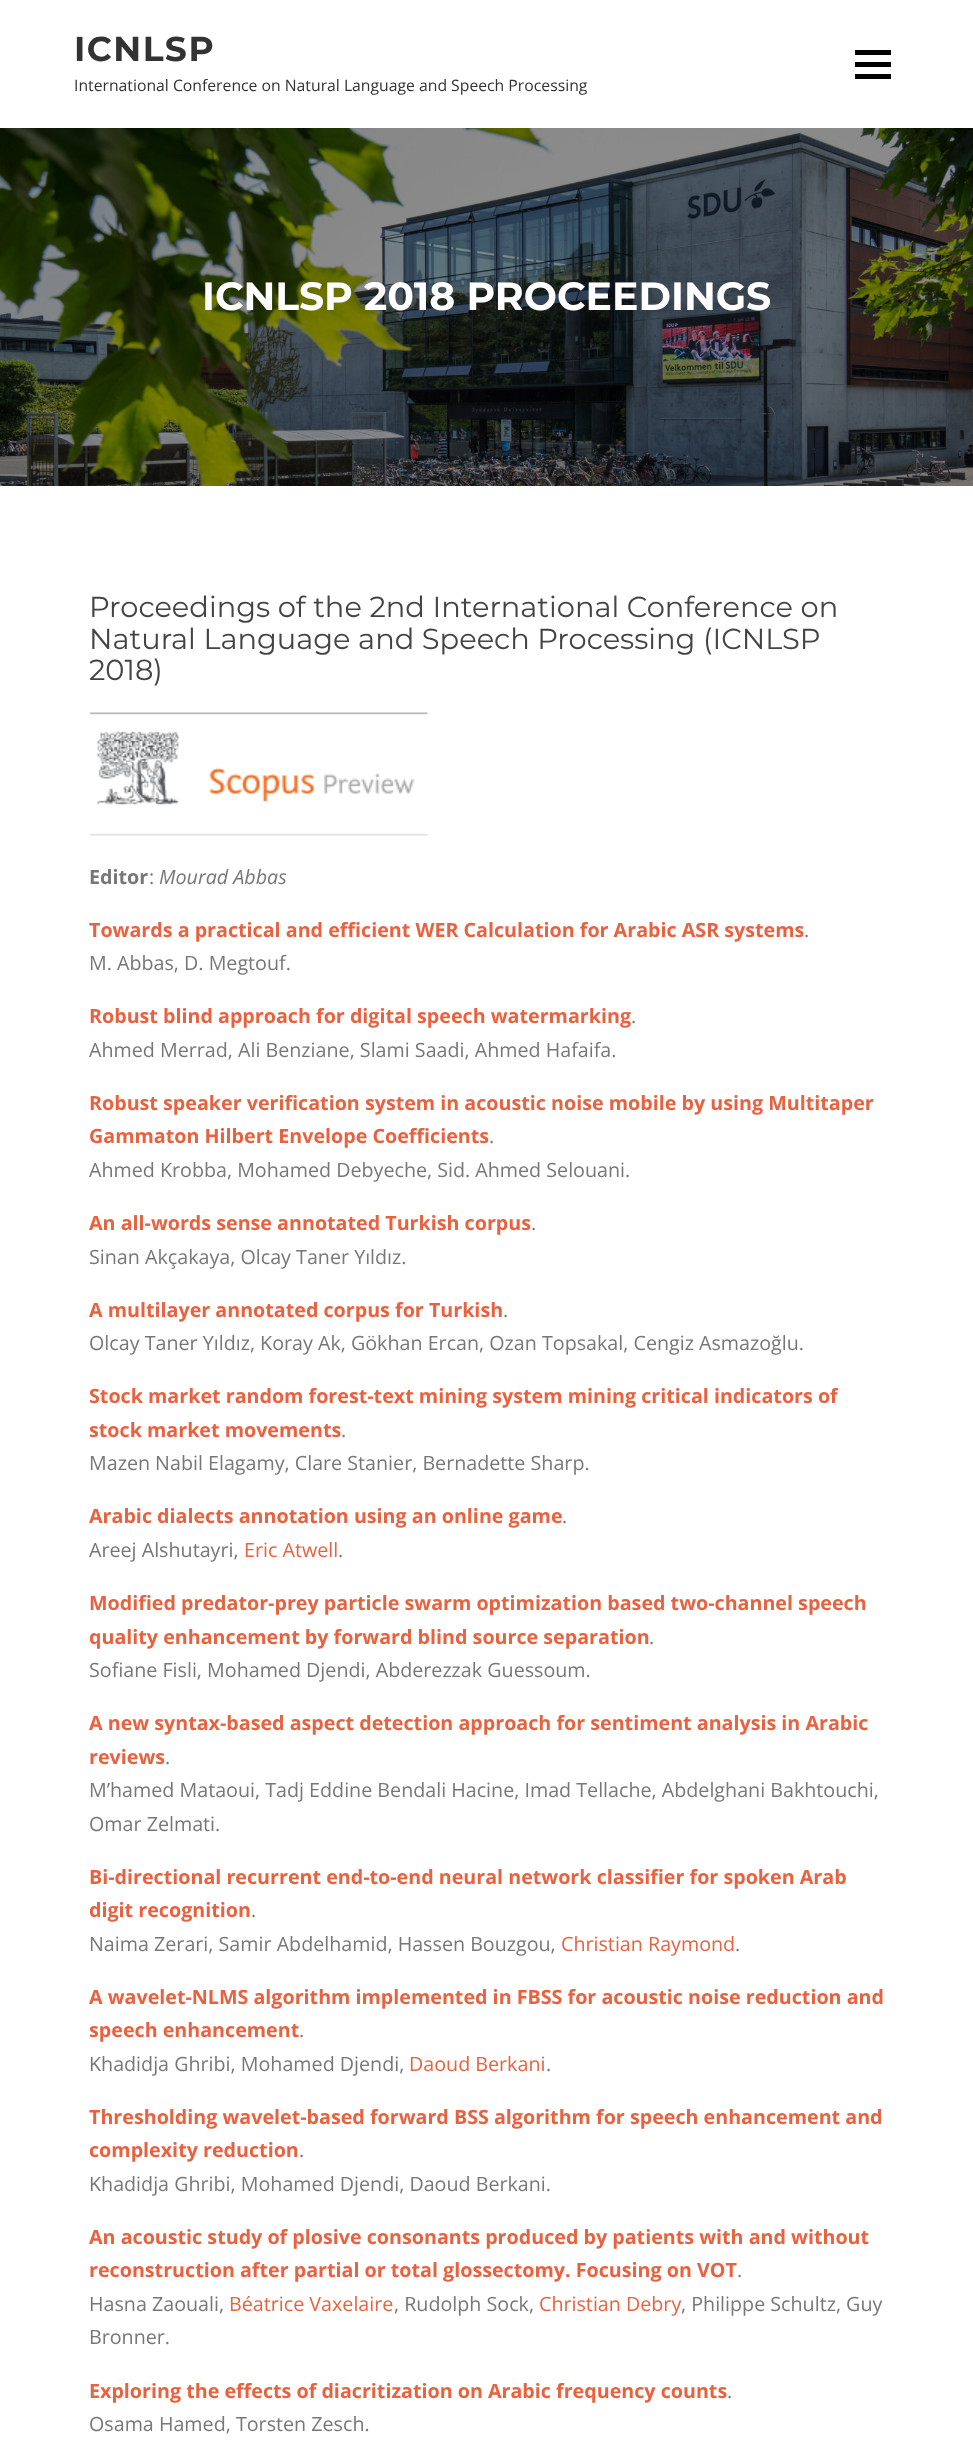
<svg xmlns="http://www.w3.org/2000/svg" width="973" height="2447">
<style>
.a{font:bold 34.5px Montserrat;letter-spacing:1.5px;fill:#333}
.b{font:15.75px Open Sans;fill:#333}
.c{font:bold 39.4px Montserrat;fill:#fff}
.d{font:28.9px Montserrat;fill:#444}
.e{font:bold 19.7px Open Sans;fill:#777}
.f{font:19.7px Open Sans;fill:#777}
.g{font:italic 19.7px Open Sans;fill:#777}
.h{font:bold 19.7px Open Sans;fill:#e86240}
.i{font:19.7px Open Sans;fill:#e86240}
</style>
<rect width="100%" height="100%" fill="#fff"/>
<path fill="#000" d="M855 62h36v5H855z"/>
<path fill="#000" d="M855 50h36v5H855z"/>
<path fill="#000" d="M855 74h36v5H855z"/>
<image href="1.png" x="0" y="128" width="973" height="358"/>
<image href="2.png" x="90" y="712" width="338" height="124"/>
<text class="a" x="74" y="61">ICNLSP</text>
<text class="b" x="74" y="91">International Conference on Natural Language and Speech Processing</text>
<text class="c" x="202" y="310">ICNLSP 2018 PROCEEDINGS</text>
<text class="d" x="89" y="617">Proceedings of the 2nd International Conference on</text>
<text class="d" x="89" y="649">Natural Language and Speech Processing (ICNLSP</text>
<text class="d" x="89" y="680">2018)</text>
<text class="e" x="89" y="884">Editor</text>
<text class="f" x="149" y="884">:</text>
<text class="g" x="159" y="884">Mourad Abbas</text>
<text class="h" x="89" y="937">Towards a practical and efficient WER Calculation for Arabic ASR systems</text>
<text class="f" x="804" y="937">.</text>
<text class="f" x="89" y="970">M. Abbas, D. Megtouf.</text>
<text class="h" x="89" y="1023">Robust blind approach for digital speech watermarking</text>
<text class="f" x="631" y="1023">.</text>
<text class="f" x="89" y="1057">Ahmed Merrad, Ali Benziane, Slami Saadi, Ahmed Hafaifa.</text>
<text class="h" x="89" y="1110">Robust speaker verification system in acoustic noise mobile by using Multitaper</text>
<text class="h" x="89" y="1143">Gammaton Hilbert Envelope Coefficients</text>
<text class="f" x="489" y="1143">.</text>
<text class="f" x="89" y="1177">Ahmed Krobba, Mohamed Debyeche, Sid. Ahmed Selouani.</text>
<text class="h" x="89" y="1230">An all-words sense annotated Turkish corpus</text>
<text class="f" x="531" y="1230">.</text>
<text class="f" x="89" y="1264">Sinan Akçakaya, Olcay Taner Yıldız.</text>
<text class="h" x="89" y="1317">A multilayer annotated corpus for Turkish</text>
<text class="f" x="503" y="1317">.</text>
<text class="f" x="89" y="1350">Olcay Taner Yıldız, Koray Ak, Gökhan Ercan, Ozan Topsakal, Cengiz Asmazoğlu.</text>
<text class="h" x="89" y="1403">Stock market random forest-text mining system mining critical indicators of</text>
<text class="h" x="89" y="1437">stock market movements</text>
<text class="f" x="341" y="1437">.</text>
<text class="f" x="89" y="1470">Mazen Nabil Elagamy, Clare Stanier, Bernadette Sharp.</text>
<text class="h" x="89" y="1523">Arabic dialects annotation using an online game</text>
<text class="f" x="562" y="1523">.</text>
<text class="f" x="89" y="1557">Areej Alshutayri,</text>
<text class="i" x="244" y="1557">Eric Atwell</text>
<text class="f" x="338" y="1557">.</text>
<text class="h" x="89" y="1610">Modified predator-prey particle swarm optimization based two-channel speech</text>
<text class="h" x="89" y="1644">quality enhancement by forward blind source separation</text>
<text class="f" x="649" y="1644">.</text>
<text class="f" x="89" y="1677">Sofiane Fisli, Mohamed Djendi, Abderezzak Guessoum.</text>
<text class="h" x="89" y="1730">A new syntax-based aspect detection approach for sentiment analysis in Arabic</text>
<text class="h" x="89" y="1764">reviews</text>
<text class="f" x="165" y="1764">.</text>
<text class="f" x="89" y="1797">M’hamed Mataoui, Tadj Eddine Bendali Hacine, Imad Tellache, Abdelghani Bakhtouchi,</text>
<text class="f" x="89" y="1831">Omar Zelmati.</text>
<text class="h" x="89" y="1884">Bi-directional recurrent end-to-end neural network classifier for spoken Arab</text>
<text class="h" x="89" y="1917">digit recognition</text>
<text class="f" x="251" y="1917">.</text>
<text class="f" x="89" y="1951">Naima Zerari, Samir Abdelhamid, Hassen Bouzgou,</text>
<text class="i" x="561" y="1951">Christian Raymond</text>
<text class="f" x="735" y="1951">.</text>
<text class="h" x="89" y="2004">A wavelet-NLMS algorithm implemented in FBSS for acoustic noise reduction and</text>
<text class="h" x="89" y="2037">speech enhancement</text>
<text class="f" x="299" y="2037">.</text>
<text class="f" x="89" y="2071">Khadidja Ghribi, Mohamed Djendi,</text>
<text class="i" x="409" y="2071">Daoud Berkani</text>
<text class="f" x="546" y="2071">.</text>
<text class="h" x="89" y="2124">Thresholding wavelet-based forward BSS algorithm for speech enhancement and</text>
<text class="h" x="89" y="2157">complexity reduction</text>
<text class="f" x="299" y="2157">.</text>
<text class="f" x="89" y="2191">Khadidja Ghribi, Mohamed Djendi, Daoud Berkani.</text>
<text class="h" x="89" y="2244">An acoustic study of plosive consonants produced by patients with and without</text>
<text class="h" x="89" y="2277">reconstruction after partial or total glossectomy. Focusing on VOT</text>
<text class="f" x="737" y="2277">.</text>
<text class="f" x="89" y="2311">Hasna Zaouali,</text>
<text class="i" x="229" y="2311">Béatrice Vaxelaire</text>
<text class="f" x="394" y="2311">, Rudolph Sock,</text>
<text class="i" x="539" y="2311">Christian Debry</text>
<text class="f" x="681" y="2311">, Philippe Schultz, Guy</text>
<text class="f" x="89" y="2344">Bronner.</text>
<text class="h" x="89" y="2398">Exploring the effects of diacritization on Arabic frequency counts</text>
<text class="f" x="727" y="2398">.</text>
<text class="f" x="89" y="2431">Osama Hamed, Torsten Zesch.</text>
</svg>
